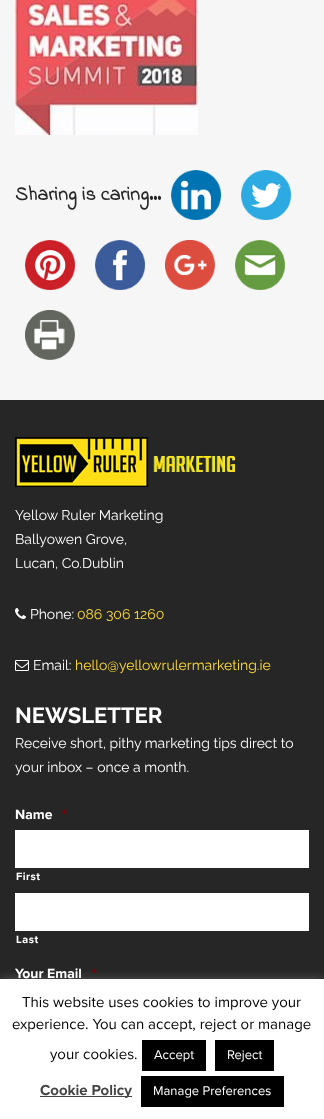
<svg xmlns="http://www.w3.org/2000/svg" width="324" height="1119">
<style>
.a{font:bold 20px Indie Flower;fill:#272727}
.b{font:14px Raleway;fill:#fff}
.c{font:14px Raleway;fill:#ffdc3a}
.d{font:bold 22px Raleway;fill:#fff}
.e{font:bold 14px Proxima Nova;fill:#fff}
.f{font:bold 14px Proxima Nova;fill:#790000}
.g{font:bold 11px Proxima Nova;letter-spacing:0.5px;fill:#fff}
.h{font:15px Proxima Nova;fill:#000}
.i{font:13px Proxima Nova;fill:#fff}
.j{font:bold 15px Proxima Nova;fill:#444}
</style>
<rect width="100%" height="100%" fill="#f6f6f6"/>
<image href="1.png" x="15" y="0" width="183" height="135"/>
<image href="2.png" x="171" y="170" width="50" height="50"/>
<image href="3.png" x="241" y="170" width="50" height="50"/>
<image href="4.png" x="25" y="240" width="50" height="50"/>
<image href="5.png" x="95" y="240" width="50" height="50"/>
<image href="6.png" x="165" y="240" width="50" height="50"/>
<image href="7.png" x="235" y="240" width="50" height="50"/>
<image href="8.png" x="25" y="310" width="50" height="50"/>
<path fill="#262626" d="M0 400h324v579H0z"/>
<image href="9.png" x="15" y="437" width="220" height="50"/>
<image href="10.png" x="15" y="608" width="11" height="11"/>
<image href="11.png" x="15" y="660" width="14" height="11"/>
<path fill="#fff" d="M15 830h294v38H15z"/>
<path fill="#fff" d="M15 893h294v38H15z"/>
<path fill="#acabab4d" filter="blur(5px)" d="M0 978h324v140H0z"/>
<path fill="#fff" d="M0 979h324v140H0z"/>
<path fill="#000" d="M142 1040h64v31H142z"/>
<path fill="#000" d="M215 1040h59v31H215z"/>
<path fill="#444" d="M40 1096h92v1H40z"/>
<path fill="#000" d="M141 1076h143v31H141z"/>
<text class="a" x="15" y="200">Sharing is caring...</text>
<text class="b" x="15" y="520">Yellow Ruler Marketing</text>
<text class="b" x="15" y="544">Ballyowen Grove,</text>
<text class="b" x="15" y="568">Lucan, Co.Dublin</text>
<text class="b" x="30" y="619">Phone:</text>
<text class="c" x="77" y="619">086 306 1260</text>
<text class="b" x="33" y="670">Email:</text>
<text class="c" x="75" y="670">hello@yellowrulermarketing.ie</text>
<text class="d" x="15" y="723">NEWSLETTER</text>
<text class="b" x="15" y="748">Receive short, pithy marketing tips direct to</text>
<text class="b" x="15" y="772">your inbox – once a month.</text>
<text class="e" x="15" y="819">Name</text>
<text class="f" x="62" y="819">*</text>
<text class="g" x="16" y="880">First</text>
<text class="g" x="16" y="943">Last</text>
<text class="e" x="15" y="978">Your Email</text>
<text class="f" x="92" y="978">*</text>
<text class="h" x="22" y="1007">This website uses cookies to improve your</text>
<text class="h" x="12" y="1029">experience. You can accept, reject or manage</text>
<text class="h" x="50" y="1059">your cookies.</text>
<text class="i" x="154" y="1059">Accept</text>
<text class="i" x="227" y="1059">Reject</text>
<text class="j" x="40" y="1095">Cookie Policy</text>
<text class="i" x="153" y="1095">Manage Preferences</text>
</svg>
